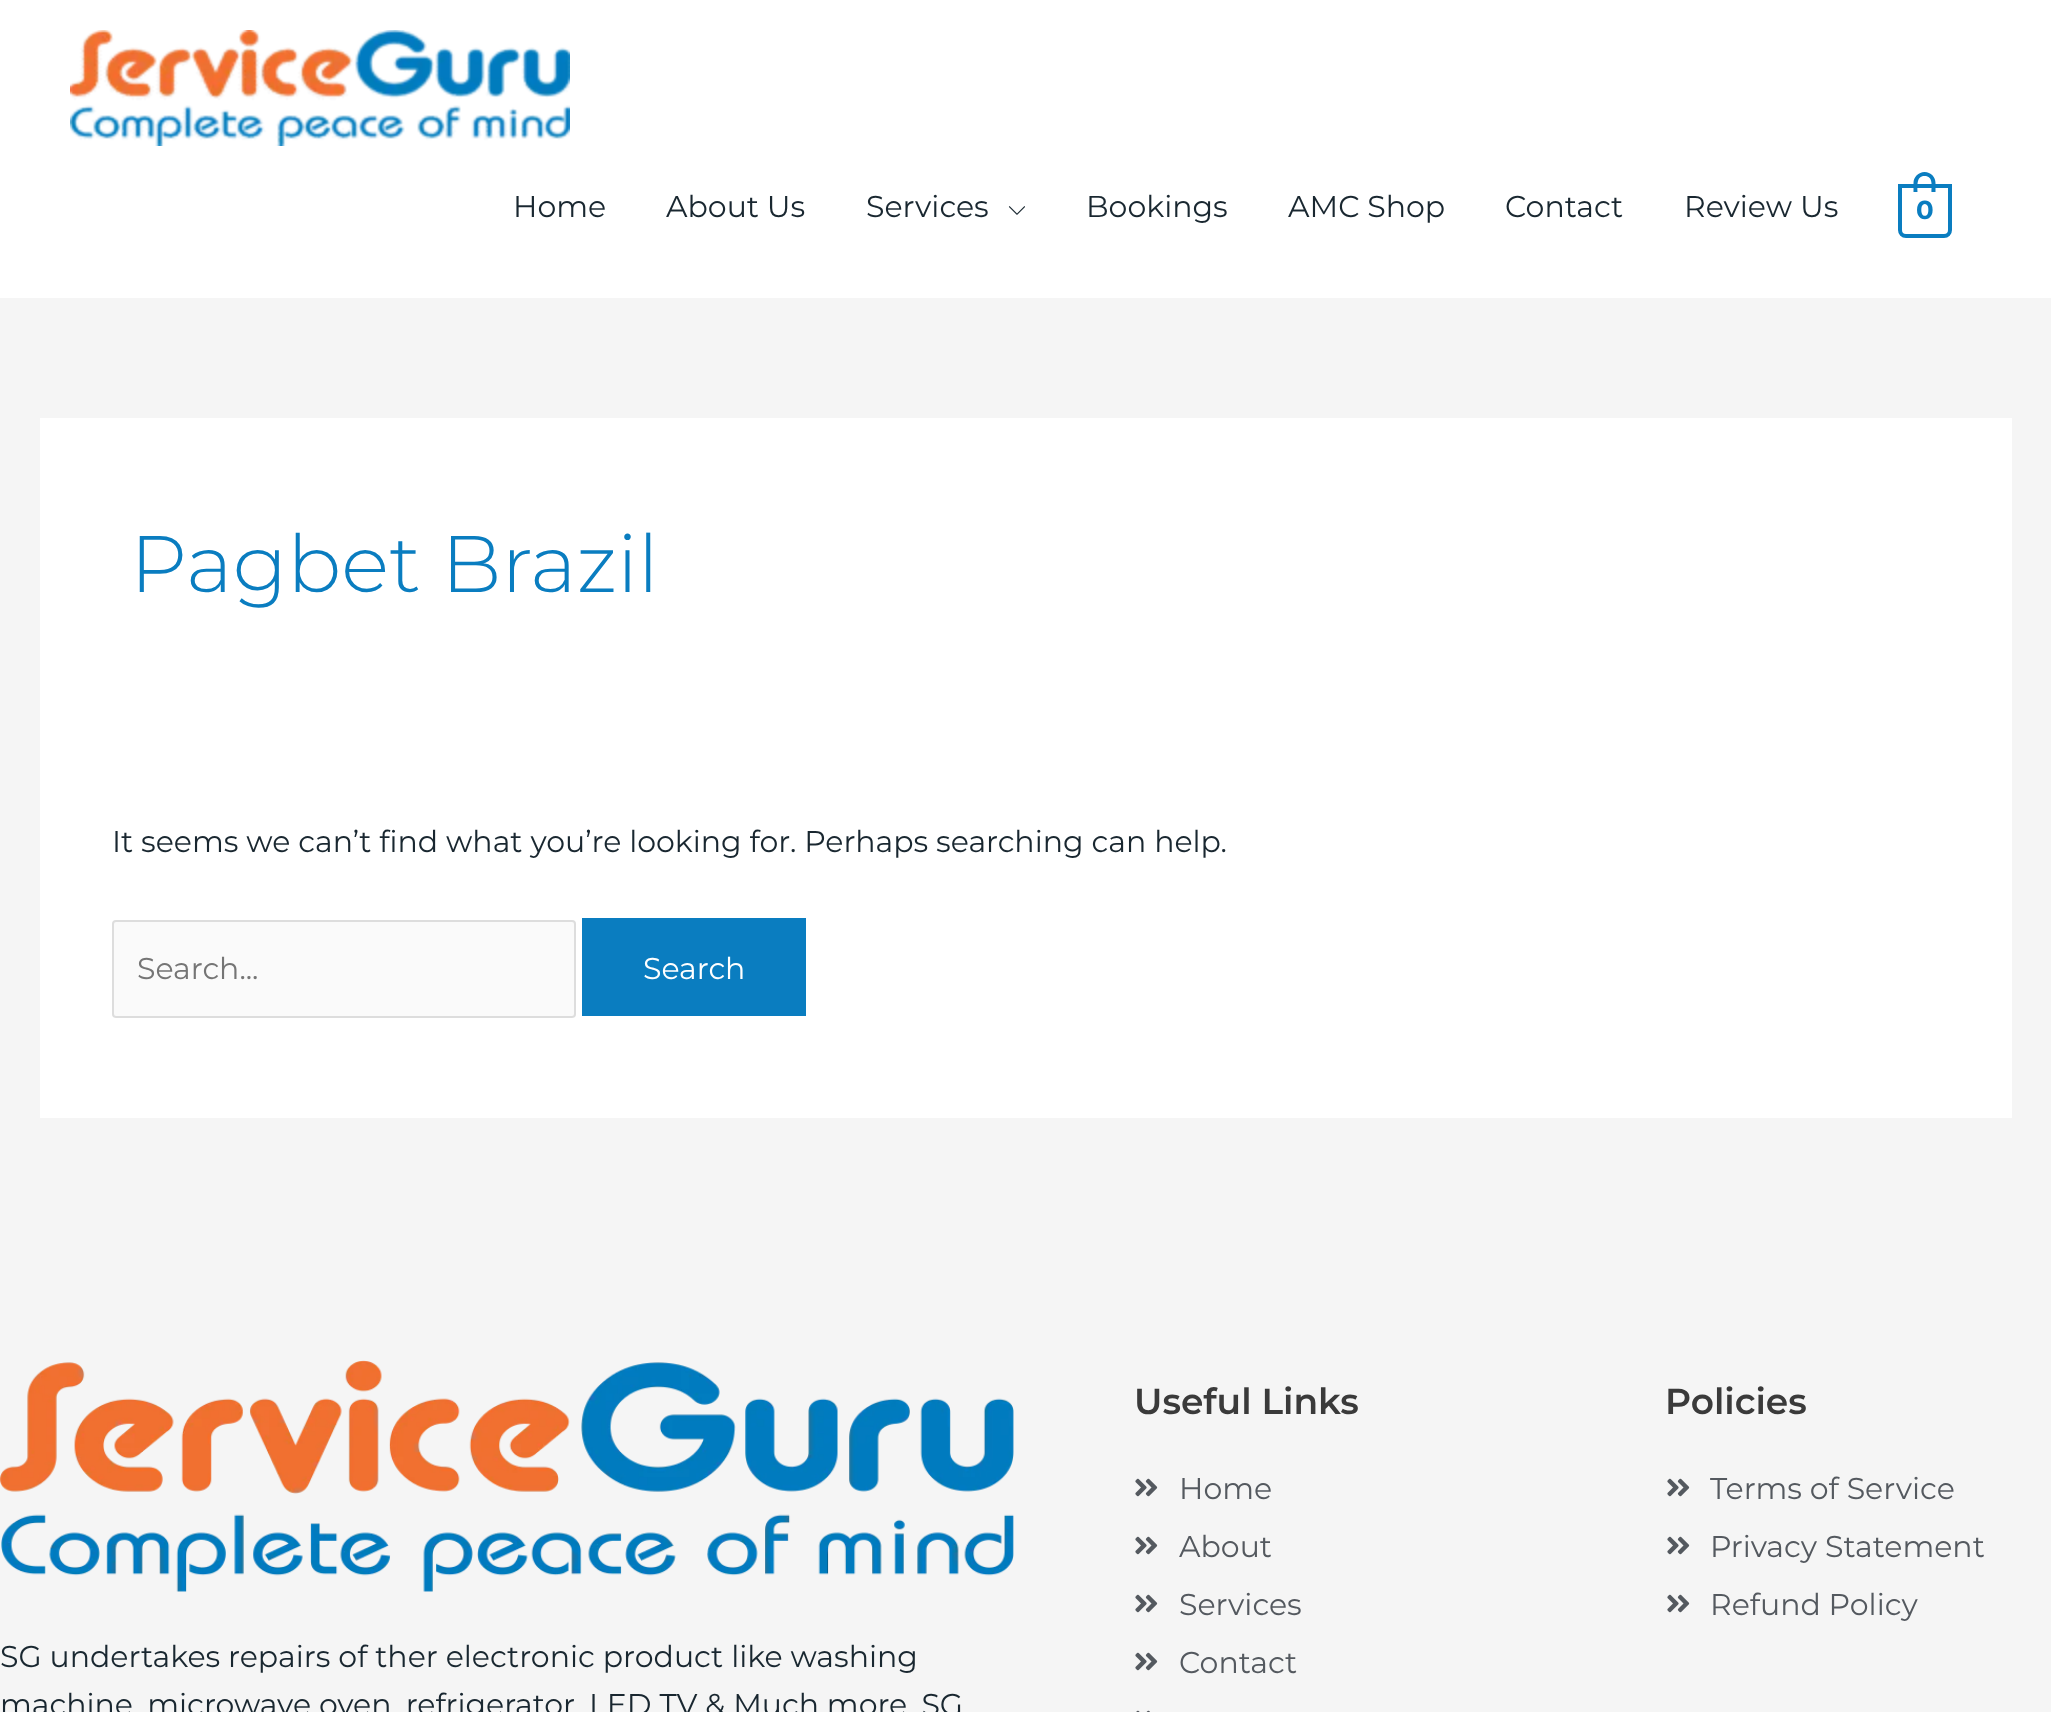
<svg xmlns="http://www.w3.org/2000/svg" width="2051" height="1712">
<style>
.a{font:30px Montserrat;fill:#192730}
.b{font:bold 26px Montserrat;fill:#0a7dc0}
.c{font:300 80px Montserrat;fill:#0a7dc0}
.d{font:30px Montserrat;fill:#757575}
.e{font:30px Montserrat;fill:#fff}
.f{font:600 36px Montserrat;fill:#3a3a3a}
.g{font:30px Montserrat;fill:#54595f}
</style>
<rect width="100%" height="100%" fill="#f5f5f5"/>
<path fill="#fff" d="M0 0h2051v298H0z"/>
<image href="1.png" x="70" y="30" width="500" height="116"/>
<image href="2.png" x="1008" y="206" width="17" height="9"/>
<path fill="none" stroke="#0a7dc0" stroke-width="4" d="M1900 186h50v44c0 3.5-2.5 6-6 6h-38c-3.5 0-6-2.5-6-6z"/>
<path fill="#0a7dc0" fill-rule="evenodd" d="M1924.5 172c6.5 0 11 5 11 11v9h-22v-9c0-6 5-11 11-11zm0 4c9 0 7 10.5 7 16h-14c0-5.5-1.5-16 7-16z"/>
<path fill="#fff" d="M40 418h1972v700H40z"/>
<rect fill="#fafafa" stroke="#ddd" stroke-width="2" x="113" y="921" width="462" height="96" rx="3"/>
<path fill="#0a7dc0" d="M582 918h224v98H582z"/>
<image href="3.png" x="1135" y="1478" width="23" height="19"/>
<image href="3.png" x="1135" y="1536" width="23" height="19"/>
<image href="3.png" x="1135" y="1594" width="23" height="19"/>
<image href="3.png" x="1135" y="1652" width="23" height="19"/>
<image href="4.png" x="1136" y="1710" width="14" height="2"/>
<image href="3.png" x="1667" y="1478" width="23" height="19"/>
<image href="3.png" x="1667" y="1536" width="23" height="19"/>
<image href="3.png" x="1667" y="1594" width="23" height="19"/>
<image href="5.png" x="0" y="1360" width="1014" height="232"/>
<text class="a" x="513" y="217">Home</text>
<text class="a" x="666" y="217">About Us</text>
<text class="a" x="866" y="217">Services</text>
<text class="a" x="1086" y="217">Bookings</text>
<text class="a" x="1288" y="217">AMC Shop</text>
<text class="a" x="1505" y="217">Contact</text>
<text class="a" x="1684" y="217">Review Us</text>
<text class="b" x="1916" y="219">0</text>
<text class="c" x="130" y="592">Pagbet Brazil</text>
<text class="a" x="112" y="852">It seems we can’t find what you’re looking for. Perhaps searching can help.</text>
<text class="d" x="137" y="979">Search...</text>
<text class="e" x="643" y="979">Search</text>
<text class="f" x="1134" y="1414">Useful Links</text>
<text class="g" x="1179" y="1499">Home</text>
<text class="g" x="1179" y="1557">About</text>
<text class="g" x="1179" y="1615">Services</text>
<text class="g" x="1179" y="1673">Contact</text>
<text class="f" x="1665" y="1414">Policies</text>
<text class="g" x="1710" y="1499">Terms of Service</text>
<text class="g" x="1710" y="1557">Privacy Statement</text>
<text class="g" x="1710" y="1615">Refund Policy</text>
<text class="a" x="0" y="1667">SG undertakes repairs of ther electronic product like washing</text>
<text class="a" x="0" y="1715">machine, microwave oven, refrigerator, LED TV &amp; Much more. SG</text>
</svg>
